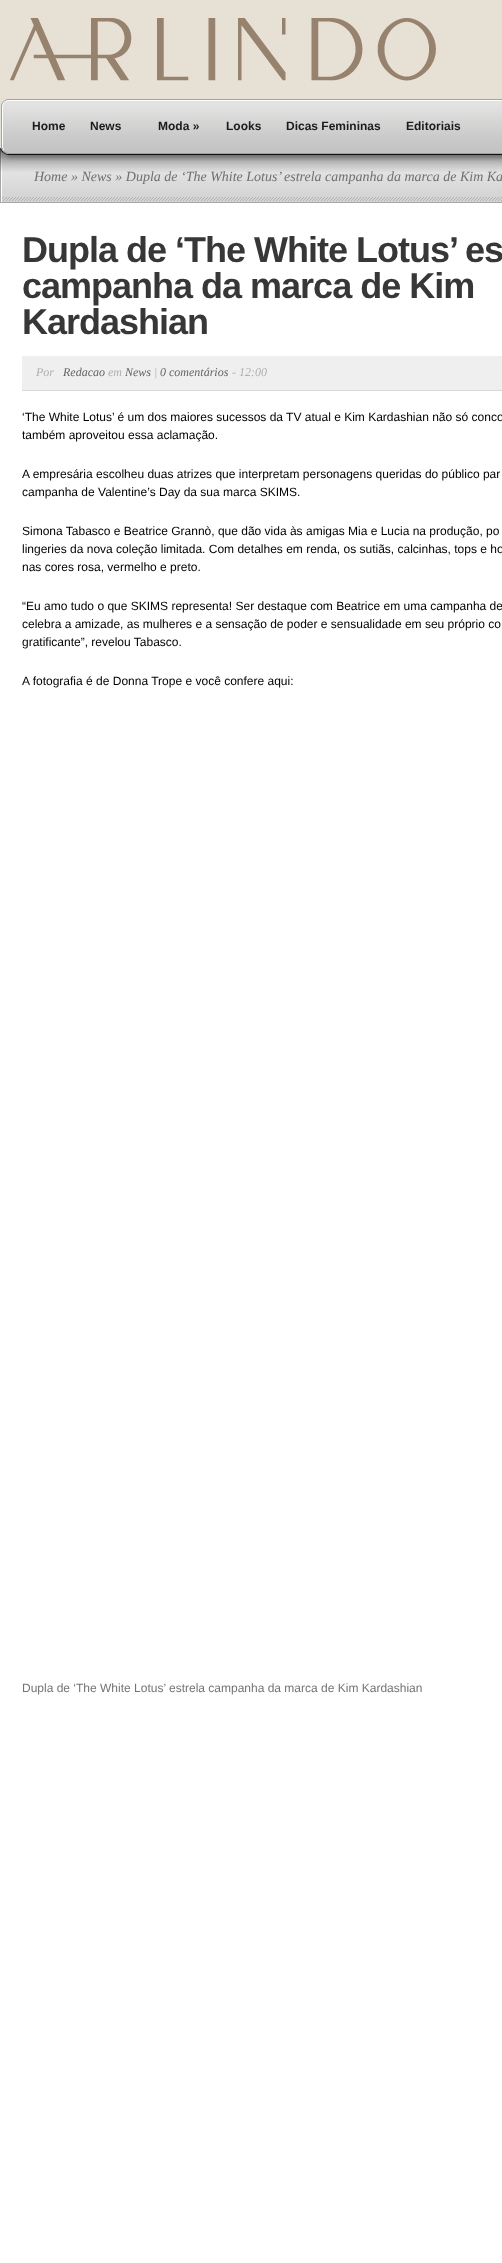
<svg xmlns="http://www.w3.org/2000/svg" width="502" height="2263">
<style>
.a{font:italic 14px Liberation Serif;fill:#6f6f6f}
.b{font:bold 12px Liberation Sans;fill:#1c1c1c}
.c{font:bold 36px Liberation Sans;letter-spacing:-1px;fill:#383737}
.d{font:italic 12px Liberation Serif;fill:#afafaf}
.e{font:italic 12px Liberation Serif;fill:#656363}
.f{font:12px Liberation Sans;fill:#000}
.g{font:12px Liberation Sans;fill:#757474}
</style>
<rect width="100%" height="100%" fill="#e7e1d5"/>
<image href="1.png" x="10" y="18" width="426" height="63"/>
<image href="4.png" x="0" y="152" width="502" height="51"/>
<path fill="#fff" d="M0 203h502v2060H0z"/>
<image href="6.png" x="0" y="148" width="2" height="54"/>
<path fill="#efefef" d="M22 356h480v34H22z"/>
<path fill="#d8d8d8" d="M22 390h480v1H22z"/>
<text class="a" x="34" y="181">Home » News » Dupla de ‘The White Lotus’ estrela campanha da marca de Kim Ka</text>
<image href="5.png" x="0" y="148" width="502" height="24"/>
<image href="3.png" x="10" y="99" width="492" height="62"/>
<text class="b" x="406" y="130">Editoriais</text>
<text class="b" x="286" y="130">Dicas Femininas</text>
<text class="b" x="226" y="130">Looks</text>
<text class="b" x="158" y="130">Moda »</text>
<text class="b" x="90" y="130">News</text>
<text class="b" x="32" y="130">Home</text>
<image href="2.png" x="0" y="99" width="10" height="61"/>
<text class="c" x="22" y="262">Dupla de ‘The White Lotus’ es</text>
<text class="c" x="22" y="298">campanha da marca de Kim</text>
<text class="c" x="22" y="334">Kardashian</text>
<text class="d" x="36" y="376">Por</text>
<text class="e" x="63" y="376">Redacao</text>
<text class="d" x="108" y="376">em</text>
<text class="e" x="125" y="376">News</text>
<text class="d" x="154" y="376">|</text>
<text class="e" x="160" y="376">0 comentários</text>
<text class="d" x="232" y="376">- 12:00</text>
<text class="f" x="22" y="421">‘The White Lotus’ é um dos maiores sucessos da TV atual e Kim Kardashian não só conco</text>
<text class="f" x="22" y="439">também aproveitou essa aclamação.</text>
<text class="f" x="22" y="478">A empresária escolheu duas atrizes que interpretam personagens queridas do público par</text>
<text class="f" x="22" y="496">campanha de Valentine’s Day da sua marca SKIMS.</text>
<text class="f" x="22" y="535">Simona Tabasco e Beatrice Grannò, que dão vida às amigas Mia e Lucia na produção, po</text>
<text class="f" x="22" y="553">lingeries da nova coleção limitada. Com detalhes em renda, os sutiãs, calcinhas, tops e ho</text>
<text class="f" x="22" y="571">nas cores rosa, vermelho e preto.</text>
<text class="f" x="22" y="610">“Eu amo tudo o que SKIMS representa! Ser destaque com Beatrice em uma campanha de</text>
<text class="f" x="22" y="628">celebra a amizade, as mulheres e a sensação de poder e sensualidade em seu próprio co</text>
<text class="f" x="22" y="646">gratificante”, revelou Tabasco.</text>
<text class="f" x="22" y="685">A fotografia é de Donna Trope e você confere aqui:</text>
<text class="g" x="22" y="1692">Dupla de ‘The White Lotus’ estrela campanha da marca de Kim Kardashian</text>
</svg>
